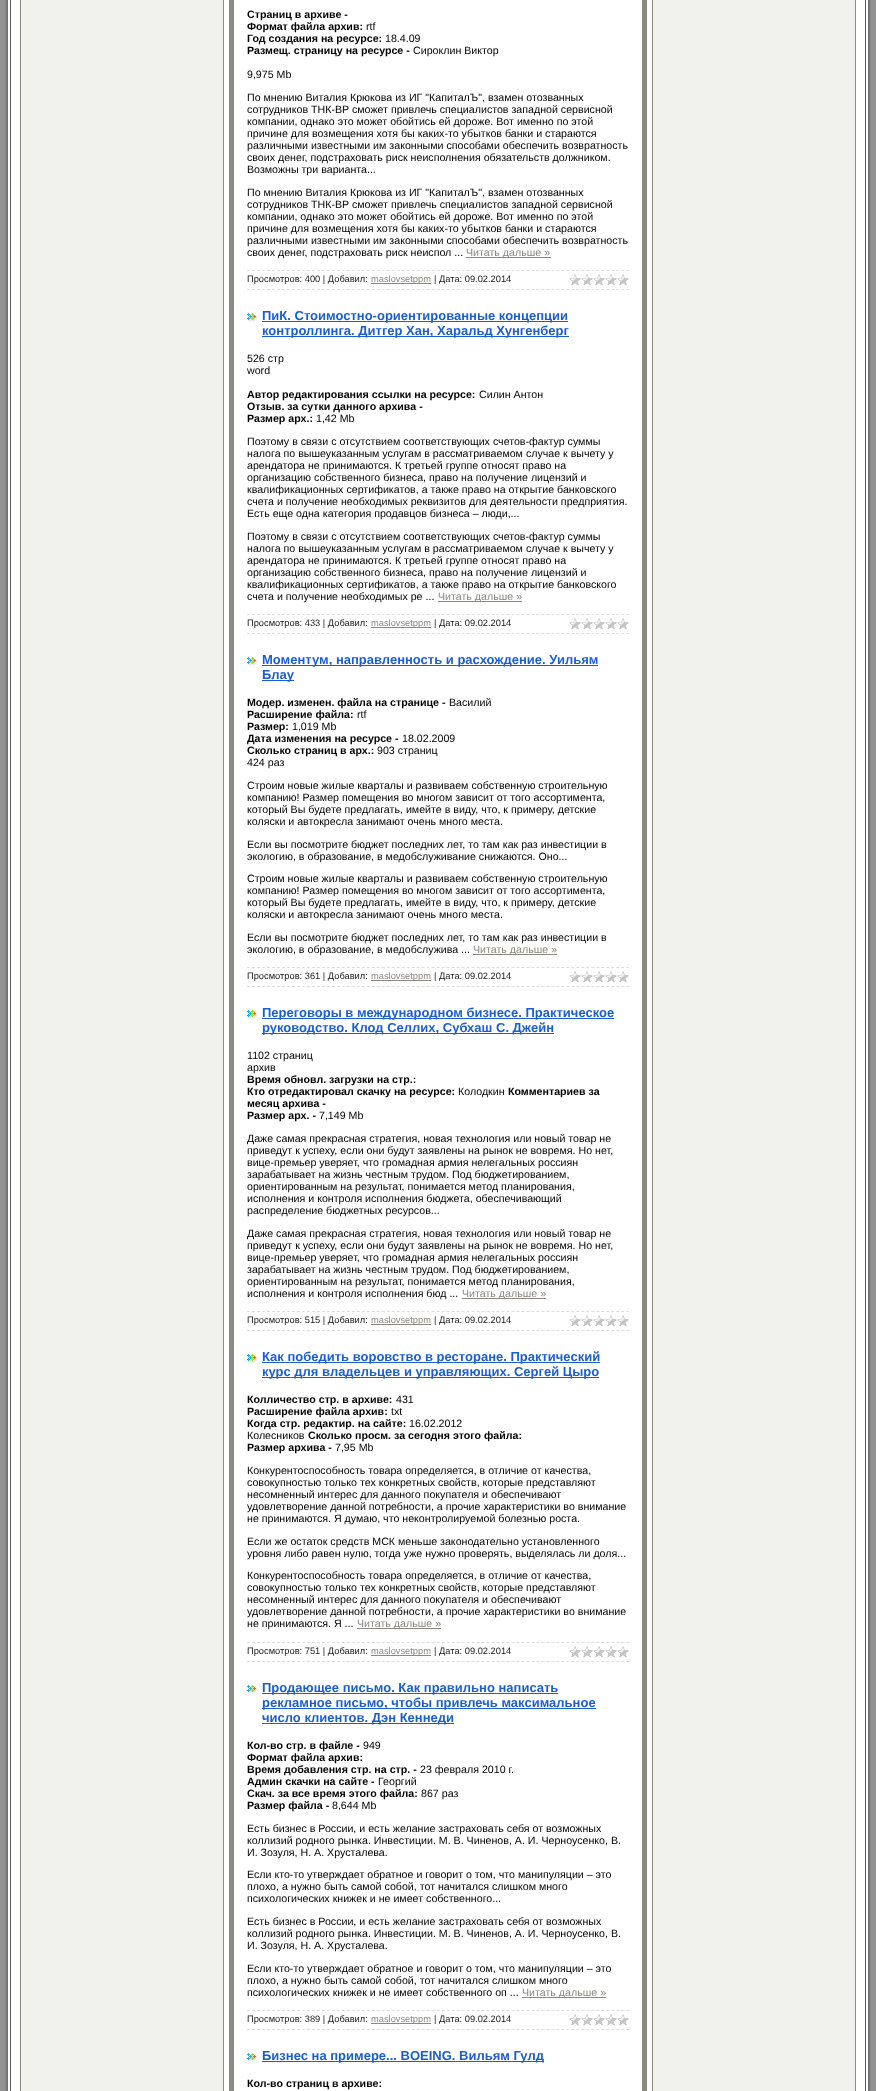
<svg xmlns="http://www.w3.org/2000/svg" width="876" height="2091">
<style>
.a{font:bold 10.65px Liberation Sans;fill:#000}
.b{font:10.65px Liberation Sans;fill:#000}
.c{font:10.65px Liberation Sans;fill:#8b8881}
.d{font:9.3px Liberation Sans;fill:#1a1a1a}
.e{font:9.3px Liberation Sans;fill:#8b8881}
.f{font:bold 13px Liberation Sans;fill:#1b5fcf}
</style>
<rect width="100%" height="100%" fill="#929292"/>
<image href="1.png" x="5" y="0" width="15" height="2091"/>
<path fill="#fff" d="M224 0h428v2091H224z"/>
<path fill="#f1f1ed" stroke="#8c8a82" d="M20.5 -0.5h203v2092H20.5z"/>
<path fill="none" stroke="#8c8a82" stroke-width="5" d="M231.5 -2.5h413v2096H231.5z"/>
<path fill="#8b8881" d="M466 257h85v1H466z"/>
<path fill="none" stroke="#ddd" stroke-dasharray="3 1.99" d="M247 270.5h382"/>
<path fill="none" stroke="#ddd" stroke-dasharray="3 1.99" d="M247 289.5h382"/>
<path fill="#8b8881" d="M371 283h60v1H371z"/>
<image href="2.png" x="569" y="274" width="60" height="12"/>
<image href="3.png" x="247" y="313" width="11" height="9"/>
<path fill="#1b5fcf" d="M262 321h306v1H262z"/>
<path fill="#1b5fcf" d="M262 336h307v1H262z"/>
<path fill="#8b8881" d="M438 601h84v1H438z"/>
<path fill="none" stroke="#ddd" stroke-dasharray="3 1.99" d="M247 614.5h382"/>
<path fill="none" stroke="#ddd" stroke-dasharray="3 1.99" d="M247 633.5h382"/>
<path fill="#8b8881" d="M371 627h60v1H371z"/>
<image href="2.png" x="569" y="618" width="60" height="12"/>
<image href="3.png" x="247" y="657" width="11" height="9"/>
<path fill="#1b5fcf" d="M262 665h336v1H262z"/>
<path fill="#1b5fcf" d="M262 680h32v1H262z"/>
<path fill="#8b8881" d="M473 954h84v1H473z"/>
<path fill="none" stroke="#ddd" stroke-dasharray="3 1.99" d="M247 967.5h382"/>
<path fill="none" stroke="#ddd" stroke-dasharray="3 1.99" d="M247 986.5h382"/>
<path fill="#8b8881" d="M371 980h60v1H371z"/>
<image href="2.png" x="569" y="971" width="60" height="12"/>
<image href="3.png" x="247" y="1010" width="11" height="9"/>
<path fill="#1b5fcf" d="M262 1018h352v1H262z"/>
<path fill="#1b5fcf" d="M262 1033h292v1H262z"/>
<path fill="#8b8881" d="M462 1298h84v1H462z"/>
<path fill="none" stroke="#ddd" stroke-dasharray="3 1.99" d="M247 1311.5h382"/>
<path fill="none" stroke="#ddd" stroke-dasharray="3 1.99" d="M247 1330.5h382"/>
<path fill="#8b8881" d="M371 1324h60v1H371z"/>
<image href="2.png" x="569" y="1315" width="60" height="12"/>
<image href="3.png" x="247" y="1354" width="11" height="9"/>
<path fill="#1b5fcf" d="M262 1362h338v1H262z"/>
<path fill="#1b5fcf" d="M262 1377h337v1H262z"/>
<path fill="#8b8881" d="M357 1628h84v1H357z"/>
<path fill="none" stroke="#ddd" stroke-dasharray="3 1.99" d="M247 1642.5h382"/>
<path fill="none" stroke="#ddd" stroke-dasharray="3 1.99" d="M247 1661.5h382"/>
<path fill="#8b8881" d="M371 1655h60v1H371z"/>
<image href="2.png" x="569" y="1646" width="60" height="12"/>
<image href="3.png" x="247" y="1685" width="11" height="9"/>
<path fill="#1b5fcf" d="M262 1693h296v1H262z"/>
<path fill="#1b5fcf" d="M262 1708h334v1H262z"/>
<path fill="#1b5fcf" d="M262 1723h192v1H262z"/>
<path fill="#8b8881" d="M522 1997h84v1H522z"/>
<path fill="none" stroke="#ddd" stroke-dasharray="3 1.99" d="M247 2010.5h382"/>
<path fill="none" stroke="#ddd" stroke-dasharray="3 1.99" d="M247 2029.5h382"/>
<path fill="#8b8881" d="M371 2023h60v1H371z"/>
<image href="2.png" x="569" y="2014" width="60" height="12"/>
<image href="3.png" x="247" y="2053" width="11" height="9"/>
<path fill="#1b5fcf" d="M262 2061h282v1H262z"/>
<path fill="#f1f1ed" stroke="#8c8a82" d="M652.5 -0.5h203v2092H652.5z"/>
<image href="4.png" x="856" y="0" width="15" height="2091"/>
<text class="a" x="247" y="18">Страниц в архиве -</text>
<text class="a" x="247" y="30">Формат файла архив:</text>
<text class="b" x="366" y="30">rtf</text>
<text class="a" x="247" y="42">Год создания на ресурсе:</text>
<text class="b" x="385" y="42">18.4.09</text>
<text class="a" x="247" y="54">Размещ. страницу на ресурсе -</text>
<text class="b" x="413" y="54">Сироклин Виктор</text>
<text class="b" x="247" y="78">9,975 Mb</text>
<text class="b" x="247" y="101">По мнению Виталия Крюкова из ИГ "КапиталЪ", взамен отозванных</text>
<text class="b" x="247" y="113">сотрудников ТНК-BP сможет привлечь специалистов западной сервисной</text>
<text class="b" x="247" y="125">компании, однако это может обойтись ей дороже. Вот именно по этой</text>
<text class="b" x="247" y="137">причине для возмещения хотя бы каких-то убытков банки и стараются</text>
<text class="b" x="247" y="149">различными известными им законными способами обеспечить возвратность</text>
<text class="b" x="247" y="161">своих денег, подстраховать риск неисполнения обязательств должником.</text>
<text class="b" x="247" y="173">Возможны три варианта...</text>
<text class="b" x="247" y="196">По мнению Виталия Крюкова из ИГ "КапиталЪ", взамен отозванных</text>
<text class="b" x="247" y="208">сотрудников ТНК-BP сможет привлечь специалистов западной сервисной</text>
<text class="b" x="247" y="220">компании, однако это может обойтись ей дороже. Вот именно по этой</text>
<text class="b" x="247" y="232">причине для возмещения хотя бы каких-то убытков банки и стараются</text>
<text class="b" x="247" y="244">различными известными им законными способами обеспечить возвратность</text>
<text class="b" x="247" y="256">своих денег, подстраховать риск неиспол ...</text>
<text class="c" x="466" y="256">Читать дальше »</text>
<text class="d" x="247" y="282">Просмотров: 400 | Добавил:</text>
<text class="e" x="371" y="282">maslovsetppm</text>
<text class="d" x="434" y="282">| Дата: 09.02.2014</text>
<text class="f" x="262" y="320">ПиК. Стоимостно-ориентированные концепции</text>
<text class="f" x="262" y="335">контроллинга. Дитгер Хан, Харальд Хунгенберг</text>
<text class="b" x="247" y="362">526 стр</text>
<text class="b" x="247" y="374">word</text>
<text class="a" x="247" y="398">Автор редактирования ссылки на ресурсе:</text>
<text class="b" x="479" y="398">Силин Антон</text>
<text class="a" x="247" y="410">Отзыв. за сутки данного архива -</text>
<text class="a" x="247" y="422">Размер арх.:</text>
<text class="b" x="316" y="422">1,42 Mb</text>
<text class="b" x="247" y="445">Поэтому в связи с отсутствием соответствующих счетов-фактур суммы</text>
<text class="b" x="247" y="457">налога по вышеуказанным услугам в рассматриваемом случае к вычету у</text>
<text class="b" x="247" y="469">арендатора не принимаются. К третьей группе относят право на</text>
<text class="b" x="247" y="481">организацию собственного бизнеса, право на получение лицензий и</text>
<text class="b" x="247" y="493">квалификационных сертификатов, а также право на открытие банковского</text>
<text class="b" x="247" y="505">счета и получение необходимых реквизитов для деятельности предприятия.</text>
<text class="b" x="247" y="517">Есть еще одна категория продавцов бизнеса – люди,...</text>
<text class="b" x="247" y="540">Поэтому в связи с отсутствием соответствующих счетов-фактур суммы</text>
<text class="b" x="247" y="552">налога по вышеуказанным услугам в рассматриваемом случае к вычету у</text>
<text class="b" x="247" y="564">арендатора не принимаются. К третьей группе относят право на</text>
<text class="b" x="247" y="576">организацию собственного бизнеса, право на получение лицензий и</text>
<text class="b" x="247" y="588">квалификационных сертификатов, а также право на открытие банковского</text>
<text class="b" x="247" y="600">счета и получение необходимых ре ...</text>
<text class="c" x="438" y="600">Читать дальше »</text>
<text class="d" x="247" y="626">Просмотров: 433 | Добавил:</text>
<text class="e" x="371" y="626">maslovsetppm</text>
<text class="d" x="434" y="626">| Дата: 09.02.2014</text>
<text class="f" x="262" y="664">Моментум, направленность и расхождение. Уильям</text>
<text class="f" x="262" y="679">Блау</text>
<text class="a" x="247" y="706">Модер. изменен. файла на странице -</text>
<text class="b" x="449" y="706">Василий</text>
<text class="a" x="247" y="718">Расширение файла:</text>
<text class="b" x="357" y="718">rtf</text>
<text class="a" x="247" y="730">Размер:</text>
<text class="b" x="292" y="730">1,019 Mb</text>
<text class="a" x="247" y="742">Дата изменения на ресурсе -</text>
<text class="b" x="402" y="742">18.02.2009</text>
<text class="a" x="247" y="754">Сколько страниц в арх.:</text>
<text class="b" x="377" y="754">903 страниц</text>
<text class="b" x="247" y="766">424 раз</text>
<text class="b" x="247" y="789">Строим новые жилые кварталы и развиваем собственную строительную</text>
<text class="b" x="247" y="801">компанию! Размер помещения во многом зависит от того ассортимента,</text>
<text class="b" x="247" y="813">который Вы будете предлагать, имейте в виду, что, к примеру, детские</text>
<text class="b" x="247" y="825">коляски и автокресла занимают очень много места.</text>
<text class="b" x="247" y="848">Если вы посмотрите бюджет последних лет, то там как раз инвестиции в</text>
<text class="b" x="247" y="860">экологию, в образование, в медобслуживание снижаются. Оно...</text>
<text class="b" x="247" y="882">Строим новые жилые кварталы и развиваем собственную строительную</text>
<text class="b" x="247" y="894">компанию! Размер помещения во многом зависит от того ассортимента,</text>
<text class="b" x="247" y="906">который Вы будете предлагать, имейте в виду, что, к примеру, детские</text>
<text class="b" x="247" y="918">коляски и автокресла занимают очень много места.</text>
<text class="b" x="247" y="941">Если вы посмотрите бюджет последних лет, то там как раз инвестиции в</text>
<text class="b" x="247" y="953">экологию, в образование, в медобслужива ...</text>
<text class="c" x="473" y="953">Читать дальше »</text>
<text class="d" x="247" y="979">Просмотров: 361 | Добавил:</text>
<text class="e" x="371" y="979">maslovsetppm</text>
<text class="d" x="434" y="979">| Дата: 09.02.2014</text>
<text class="f" x="262" y="1017">Переговоры в международном бизнесе. Практическое</text>
<text class="f" x="262" y="1032">руководство. Клод Селлих, Субхаш С. Джейн</text>
<text class="b" x="247" y="1059">1102 страниц</text>
<text class="b" x="247" y="1071">архив</text>
<text class="a" x="247" y="1083">Время обновл. загрузки на стр.:</text>
<text class="a" x="247" y="1095">Кто отредактировал скачку на ресурсе:</text>
<text class="b" x="458" y="1095">Колодкин</text>
<text class="a" x="508" y="1095">Комментариев за</text>
<text class="a" x="247" y="1107">месяц архива -</text>
<text class="a" x="247" y="1119">Размер арх. -</text>
<text class="b" x="319" y="1119">7,149 Mb</text>
<text class="b" x="247" y="1142">Даже самая прекрасная стратегия, новая технология или новый товар не</text>
<text class="b" x="247" y="1154">приведут к успеху, если они будут заявлены на рынок не вовремя. Но нет,</text>
<text class="b" x="247" y="1166">вице-премьер уверяет, что громадная армия нелегальных россиян</text>
<text class="b" x="247" y="1178">зарабатывает на жизнь честным трудом. Под бюджетированием,</text>
<text class="b" x="247" y="1190">ориентированным на результат, понимается метод планирования,</text>
<text class="b" x="247" y="1202">исполнения и контроля исполнения бюджета, обеспечивающий</text>
<text class="b" x="247" y="1214">распределение бюджетных ресурсов...</text>
<text class="b" x="247" y="1237">Даже самая прекрасная стратегия, новая технология или новый товар не</text>
<text class="b" x="247" y="1249">приведут к успеху, если они будут заявлены на рынок не вовремя. Но нет,</text>
<text class="b" x="247" y="1261">вице-премьер уверяет, что громадная армия нелегальных россиян</text>
<text class="b" x="247" y="1273">зарабатывает на жизнь честным трудом. Под бюджетированием,</text>
<text class="b" x="247" y="1285">ориентированным на результат, понимается метод планирования,</text>
<text class="b" x="247" y="1297">исполнения и контроля исполнения бюд ...</text>
<text class="c" x="462" y="1297">Читать дальше »</text>
<text class="d" x="247" y="1323">Просмотров: 515 | Добавил:</text>
<text class="e" x="371" y="1323">maslovsetppm</text>
<text class="d" x="434" y="1323">| Дата: 09.02.2014</text>
<text class="f" x="262" y="1361">Как победить воровство в ресторане. Практический</text>
<text class="f" x="262" y="1376">курс для владельцев и управляющих. Сергей Цыро</text>
<text class="a" x="247" y="1403">Колличество стр. в архиве:</text>
<text class="b" x="396" y="1403">431</text>
<text class="a" x="247" y="1415">Расширение файла архив:</text>
<text class="b" x="391" y="1415">txt</text>
<text class="a" x="247" y="1427">Когда стр. редактир. на сайте:</text>
<text class="b" x="409" y="1427">16.02.2012</text>
<text class="b" x="247" y="1439">Колесников</text>
<text class="a" x="308" y="1439">Сколько просм. за сегодня этого файла:</text>
<text class="a" x="247" y="1451">Размер архива -</text>
<text class="b" x="335" y="1451">7,95 Mb</text>
<text class="b" x="247" y="1474">Конкурентоспособность товара определяется, в отличие от качества,</text>
<text class="b" x="247" y="1486">совокупностью только тех конкретных свойств, которые представляют</text>
<text class="b" x="247" y="1498">несомненный интерес для данного покупателя и обеспечивают</text>
<text class="b" x="247" y="1510">удовлетворение данной потребности, а прочие характеристики во внимание</text>
<text class="b" x="247" y="1522">не принимаются. Я думаю, что неконтролируемой болезнью роста.</text>
<text class="b" x="247" y="1545">Если же остаток средств МСК меньше законодательно установленного</text>
<text class="b" x="247" y="1557">уровня либо равен нулю, тогда уже нужно проверять, выделялась ли доля...</text>
<text class="b" x="247" y="1579">Конкурентоспособность товара определяется, в отличие от качества,</text>
<text class="b" x="247" y="1591">совокупностью только тех конкретных свойств, которые представляют</text>
<text class="b" x="247" y="1603">несомненный интерес для данного покупателя и обеспечивают</text>
<text class="b" x="247" y="1615">удовлетворение данной потребности, а прочие характеристики во внимание</text>
<text class="b" x="247" y="1627">не принимаются. Я ...</text>
<text class="c" x="357" y="1627">Читать дальше »</text>
<text class="d" x="247" y="1654">Просмотров: 751 | Добавил:</text>
<text class="e" x="371" y="1654">maslovsetppm</text>
<text class="d" x="434" y="1654">| Дата: 09.02.2014</text>
<text class="f" x="262" y="1692">Продающее письмо. Как правильно написать</text>
<text class="f" x="262" y="1707">рекламное письмо, чтобы привлечь максимальное</text>
<text class="f" x="262" y="1722">число клиентов. Дэн Кеннеди</text>
<text class="a" x="247" y="1749">Кол-во стр. в файле -</text>
<text class="b" x="363" y="1749">949</text>
<text class="a" x="247" y="1761">Формат файла архив:</text>
<text class="a" x="247" y="1773">Время добавления стр. на стр. -</text>
<text class="b" x="420" y="1773">23 февраля 2010 г.</text>
<text class="a" x="247" y="1785">Админ скачки на сайте -</text>
<text class="b" x="378" y="1785">Георгий</text>
<text class="a" x="247" y="1797">Скач. за все время этого файла:</text>
<text class="b" x="421" y="1797">867 раз</text>
<text class="a" x="247" y="1809">Размер файла -</text>
<text class="b" x="332" y="1809">8,644 Mb</text>
<text class="b" x="247" y="1832">Есть бизнес в России, и есть желание застраховать себя от возможных</text>
<text class="b" x="247" y="1844">коллизий родного рынка. Инвестиции. М. В. Чиненов, А. И. Черноусенко, В.</text>
<text class="b" x="247" y="1856">И. Зозуля, Н. А. Хрусталева.</text>
<text class="b" x="247" y="1878">Если кто-то утверждает обратное и говорит о том, что манипуляции – это</text>
<text class="b" x="247" y="1890">плохо, а нужно быть самой собой, тот начитался слишком много</text>
<text class="b" x="247" y="1902">психологических книжек и не имеет собственного...</text>
<text class="b" x="247" y="1925">Есть бизнес в России, и есть желание застраховать себя от возможных</text>
<text class="b" x="247" y="1937">коллизий родного рынка. Инвестиции. М. В. Чиненов, А. И. Черноусенко, В.</text>
<text class="b" x="247" y="1949">И. Зозуля, Н. А. Хрусталева.</text>
<text class="b" x="247" y="1972">Если кто-то утверждает обратное и говорит о том, что манипуляции – это</text>
<text class="b" x="247" y="1984">плохо, а нужно быть самой собой, тот начитался слишком много</text>
<text class="b" x="247" y="1996">психологических книжек и не имеет собственного оп ...</text>
<text class="c" x="522" y="1996">Читать дальше »</text>
<text class="d" x="247" y="2022">Просмотров: 389 | Добавил:</text>
<text class="e" x="371" y="2022">maslovsetppm</text>
<text class="d" x="434" y="2022">| Дата: 09.02.2014</text>
<text class="f" x="262" y="2060">Бизнес на примере... BOEING. Вильям Гулд</text>
<text class="a" x="247" y="2087">Кол-во страниц в архиве:</text>
</svg>
